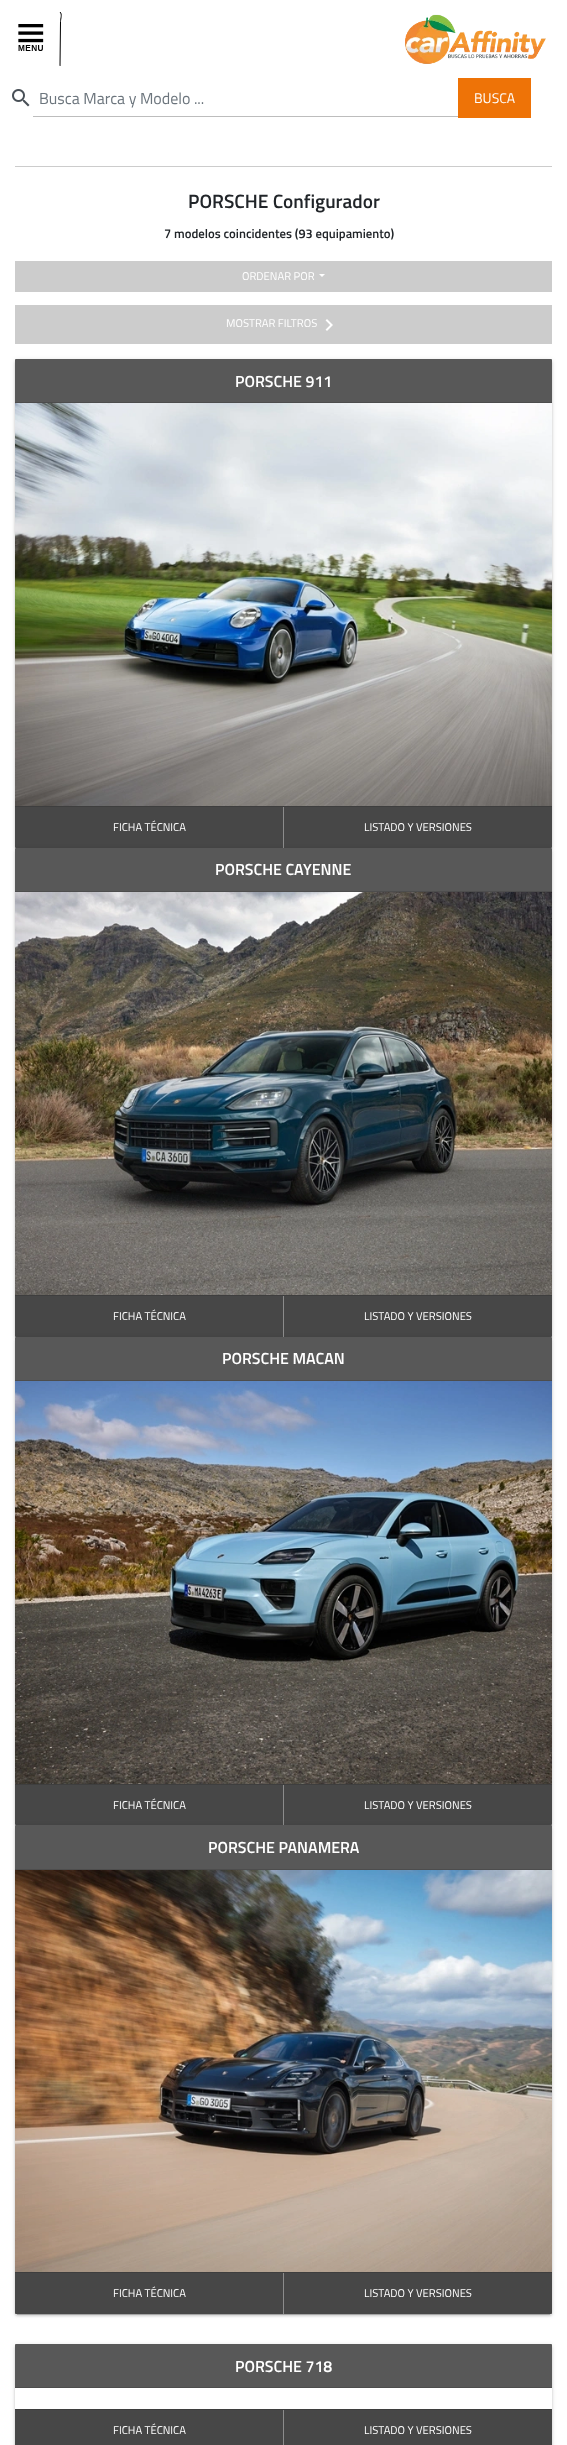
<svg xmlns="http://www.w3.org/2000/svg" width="567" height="2445">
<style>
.a{font:16px Titillium Web;fill:#6c757d}
.b{font:14px Titillium Web;fill:#fff}
.c{font:600 19.25px Titillium Web;fill:#212529}
.d{font:600 12.75px Titillium Web;fill:#212529}
.e{font:11.25px Titillium Web;fill:#fff}
.f{font:600 16px Titillium Web;fill:#fff}
</style>
<defs>
<clipPath id="clip1"><path d="M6 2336h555v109h-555zm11 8h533c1 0 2 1 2 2v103c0 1-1 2-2 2h-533c-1 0-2-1-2-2v-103c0-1 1-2 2-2z" clip-rule="evenodd"/></clipPath>
<clipPath id="clip2"><path d="M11 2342h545v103h-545zm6 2h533c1 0 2 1 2 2v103c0 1-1 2-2 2h-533c-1 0-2-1-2-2v-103c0-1 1-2 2-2z" clip-rule="evenodd"/></clipPath>
</defs>
<rect width="100%" height="100%" fill="#fff"/>
<path fill="none" stroke="#000" d="M60 12c2.5 2.5 .5 6.5 .5 9.5l-.5 44.5"/>
<path fill="none" stroke="#fff" d="M60 66c-1 1.5-24 .5-27 .5h-17.5c-12 0-10 2-10-10v-35c0-12-2-10 10-10h17.5c3 0 26-1 27 .5"/>
<image href="1.png" x="18" y="24" width="26" height="27"/>
<image href="2.png" x="405" y="14" width="141" height="50"/>
<image href="3.png" x="12" y="89" width="18" height="18"/>
<path fill="#bdbdbd" d="M33 116h426v1H33z"/>
<path fill="#ee7307" d="M458 78h73v40H458z"/>
<path fill="#ccc" d="M15 166h537v1H15z"/>
<path fill="#ccc" d="M15 261h537v31H15z"/>
<path fill="#fff" d="M319 274h6l-3 3z"/>
<path fill="#ccc" d="M15 305h537v39H15z"/>
<image href="4.png" x="325" y="319" width="8" height="12"/>
<rect fill="#0000001f" filter="blur(2.5px)" x="15" y="360" width="537" height="489" rx="2"/>
<rect fill="#00000024" filter="blur(1px)" x="15" y="361" width="537" height="489" rx="2"/>
<path fill="#585858" d="M16 359h535c.5 0 1 .5 1 1v43h-537v-43c0-.5 .5-1 1-1z"/>
<path fill="#4d4d4d" d="M15 402h537v1H15z"/>
<image href="5.png" x="15" y="403" width="537" height="403"/>
<path fill="#474747" d="M15 806h537v41c0 .5-.5 1-1 1h-535c-.5 0-1-.5-1-1z"/>
<path fill="#3e3e3e" d="M15 806h537v1H15z"/>
<path fill="#8c8c8c" d="M283 807h1v41H283z"/>
<rect fill="#0000001f" filter="blur(2.5px)" x="15" y="849" width="537" height="489" rx="2"/>
<rect fill="#00000024" filter="blur(1px)" x="15" y="850" width="537" height="489" rx="2"/>
<path fill="#585858" d="M16 848h535c.5 0 1 .5 1 1v43h-537v-43c0-.5 .5-1 1-1z"/>
<path fill="#4d4d4d" d="M15 891h537v1H15z"/>
<image href="6.png" x="15" y="892" width="537" height="403"/>
<path fill="#474747" d="M15 1295h537v41c0 .5-.5 1-1 1h-535c-.5 0-1-.5-1-1z"/>
<path fill="#3e3e3e" d="M15 1295h537v1H15z"/>
<path fill="#8c8c8c" d="M283 1296h1v41H283z"/>
<rect fill="#0000001f" filter="blur(2.5px)" x="15" y="1338" width="537" height="488" rx="2"/>
<rect fill="#00000024" filter="blur(1px)" x="15" y="1339" width="537" height="488" rx="2"/>
<path fill="#585858" d="M16 1337h535c.5 0 1 .5 1 1v43h-537v-43c0-.5 .5-1 1-1z"/>
<path fill="#4d4d4d" d="M15 1380h537v1H15z"/>
<image href="7.png" x="15" y="1381" width="537" height="403"/>
<path fill="#474747" d="M15 1784h537v40c0 .5-.5 1-1 1h-535c-.5 0-1-.5-1-1z"/>
<path fill="#3e3e3e" d="M15 1784h537v1H15z"/>
<path fill="#8c8c8c" d="M283 1785h1v40H283z"/>
<rect fill="#0000001f" filter="blur(2.5px)" x="15" y="1826" width="537" height="489" rx="2"/>
<path fill="#00000033" filter="blur(0.5px)" d="M17 1830h533v485H17z"/>
<rect fill="#00000024" filter="blur(1px)" x="15" y="1827" width="537" height="489" rx="2"/>
<path fill="#585858" d="M16 1825h535c.5 0 1 .5 1 1v44h-537v-44c0-.5 .5-1 1-1z"/>
<path fill="#4d4d4d" d="M15 1869h537v1H15z"/>
<image href="8.png" x="15" y="1870" width="537" height="402"/>
<path fill="#474747" d="M15 2272h537v41c0 .5-.5 1-1 1h-535c-.5 0-1-.5-1-1z"/>
<path fill="#3e3e3e" d="M15 2272h537v1H15z"/>
<path fill="#8c8c8c" d="M283 2273h1v41H283z"/>
<g clip-path="url(#clip1)">
<rect fill="#0000001f" filter="blur(2.5px)" x="15" y="2345" width="537" height="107" rx="2"/>
</g>
<g clip-path="url(#clip2)">
<rect fill="#00000024" filter="blur(1px)" x="15" y="2346" width="537" height="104" rx="2"/>
</g>
<path fill="#585858" d="M16 2344h535c.5 0 1 .5 1 1v43h-537v-43c0-.5 .5-1 1-1z"/>
<path fill="#4d4d4d" d="M15 2387h537v1H15z"/>
<path fill="#474747" d="M15 2410h537v35H15z"/>
<path fill="#3e3e3e" d="M15 2409h537v1H15z"/>
<path fill="#8c8c8c" d="M283 2410h1v35H283z"/>
<text class="a" x="39" y="104">Busca Marca y Modelo ...</text>
<text class="b" x="474" y="103">BUSCA</text>
<text class="c" x="188" y="208">PORSCHE Configurador</text>
<text class="d" x="164" y="238">7 modelos coincidentes (93 equipamiento)</text>
<text class="e" x="242" y="280">ORDENAR POR</text>
<text class="e" x="226" y="327">MOSTRAR FILTROS</text>
<text class="f" x="235" y="387">PORSCHE 911</text>
<text class="e" x="113" y="831">FICHA TÉCNICA</text>
<text class="e" x="364" y="831">LISTADO Y VERSIONES</text>
<text class="f" x="215" y="875">PORSCHE CAYENNE</text>
<text class="e" x="113" y="1320">FICHA TÉCNICA</text>
<text class="e" x="364" y="1320">LISTADO Y VERSIONES</text>
<text class="f" x="222" y="1364">PORSCHE MACAN</text>
<text class="e" x="113" y="1809">FICHA TÉCNICA</text>
<text class="e" x="364" y="1809">LISTADO Y VERSIONES</text>
<text class="f" x="208" y="1853">PORSCHE PANAMERA</text>
<text class="e" x="113" y="2297">FICHA TÉCNICA</text>
<text class="e" x="364" y="2297">LISTADO Y VERSIONES</text>
<text class="f" x="235" y="2372">PORSCHE 718</text>
<text class="e" x="113" y="2434">FICHA TÉCNICA</text>
<text class="e" x="364" y="2434">LISTADO Y VERSIONES</text>
</svg>
